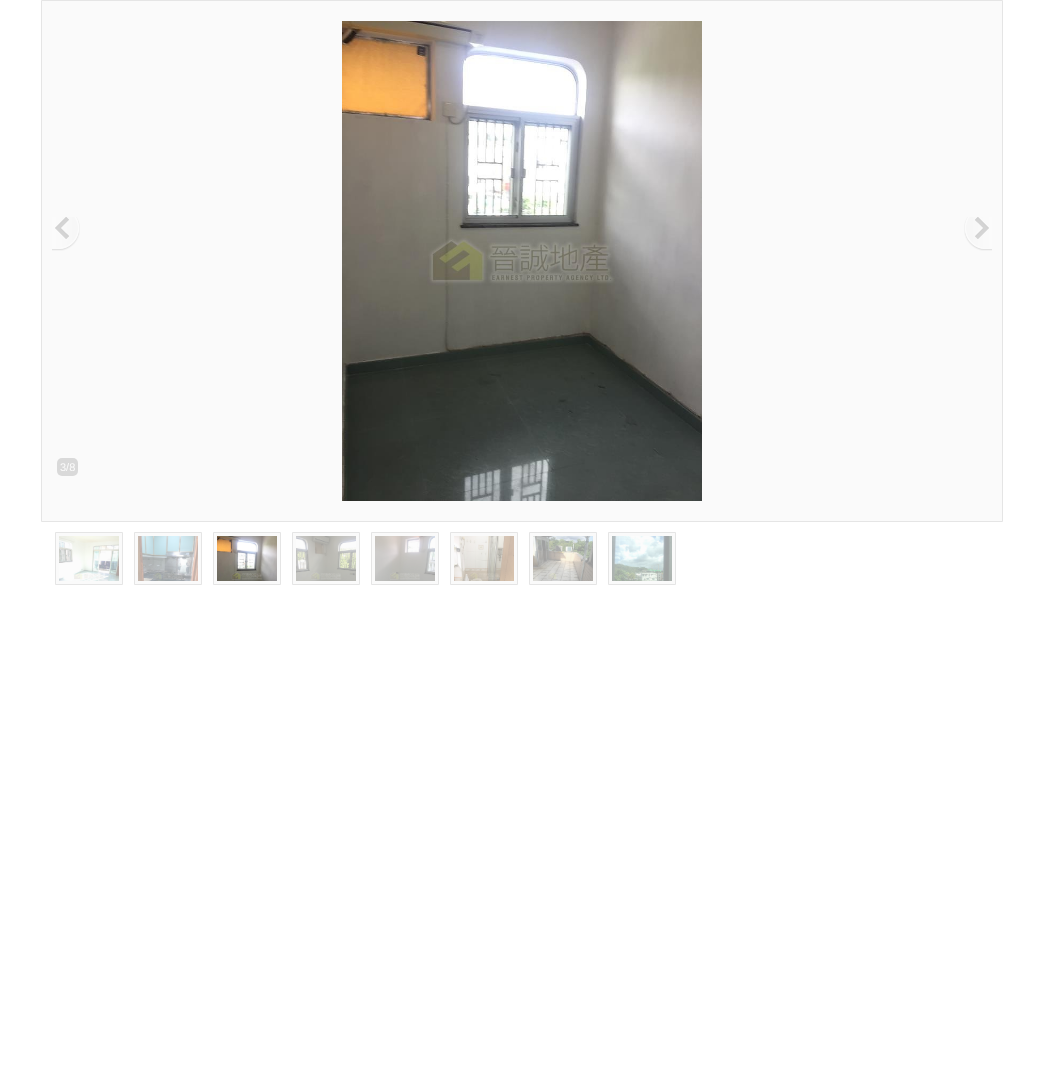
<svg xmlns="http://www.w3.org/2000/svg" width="1052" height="1067">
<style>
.a{font:11px Liberation Sans;fill:#fbfbfb}
</style>
<rect width="100%" height="100%" fill="#fff"/>
<path fill="#fafafa" stroke="#e5e5e5" d="M41.5 0.5h961v521H41.5z"/>
<image href="1.png" x="52" y="217" width="28" height="34"/>
<image href="2.png" x="964" y="217" width="28" height="34"/>
<rect fill="#d9d9d9" x="57" y="458" width="21" height="18" rx="5"/>
<image href="3.png" x="342" y="21" width="360" height="480"/>
<path fill="#fafafa" stroke="#e5e5e5" d="M55.5 532.5h67v52H55.5z"/>
<image href="4.png" x="59" y="536" width="60" height="45"/>
<path fill="#fafafa" stroke="#e5e5e5" d="M134.5 532.5h67v52H134.5z"/>
<image href="5.png" x="138" y="536" width="60" height="45"/>
<path fill="#fafafa" stroke="#e5e5e5" d="M213.5 532.5h67v52H213.5z"/>
<image href="6.png" x="217" y="536" width="60" height="45"/>
<path fill="#fafafa" stroke="#e5e5e5" d="M292.5 532.5h67v52H292.5z"/>
<image href="7.png" x="296" y="536" width="60" height="45"/>
<path fill="#fafafa" stroke="#e5e5e5" d="M371.5 532.5h67v52H371.5z"/>
<image href="8.png" x="375" y="536" width="60" height="45"/>
<path fill="#fafafa" stroke="#e5e5e5" d="M450.5 532.5h67v52H450.5z"/>
<image href="9.png" x="454" y="536" width="60" height="45"/>
<path fill="#fafafa" stroke="#e5e5e5" d="M529.5 532.5h67v52H529.5z"/>
<image href="10.png" x="533" y="536" width="60" height="45"/>
<path fill="#fafafa" stroke="#e5e5e5" d="M608.5 532.5h67v52H608.5z"/>
<image href="11.png" x="612" y="536" width="60" height="45"/>
<text class="a" x="60" y="471">3/8</text>
</svg>
